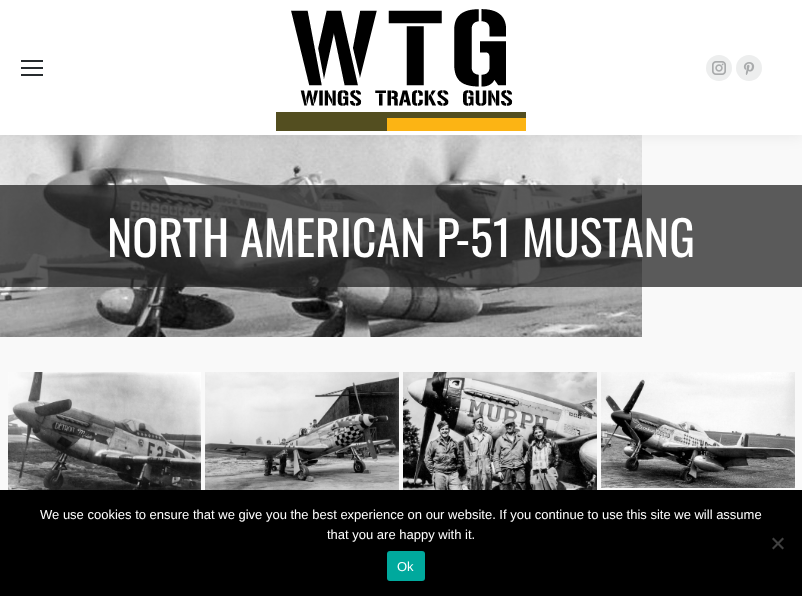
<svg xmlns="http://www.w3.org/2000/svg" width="802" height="596">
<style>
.a{font:48px Oswald;fill:#fff}
.b{font:13px Liberation Sans;fill:#fff}
</style>
<rect width="100%" height="100%" fill="#f9f9f9"/>
<image href="4.png" x="0" y="135" width="642" height="202"/>
<path fill="#00000012" filter="blur(7.5px)" d="M-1 -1h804v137H-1z"/>
<path fill="#fff" d="M0 0h802v135H0z"/>
<path fill="#262b2e" d="M21 60h22v2H21z"/>
<path fill="#262b2e" d="M21 67h22v2H21z"/>
<path fill="#262b2e" d="M21 74h22v2H21z"/>
<image href="1.png" x="276" y="9" width="250" height="122"/>
<circle fill="#edeeee" cx="719" cy="68" r="13"/>
<image href="2.png" x="712" y="61" width="14" height="14"/>
<circle fill="#edeeee" cx="749" cy="68" r="13"/>
<image href="3.png" x="743" y="62" width="12" height="13"/>
<path fill="#242424bf" d="M0 185h802v102H0z"/>
<image href="5.png" x="8" y="372" width="193" height="118"/>
<image href="6.png" x="205" y="372" width="194" height="118"/>
<image href="7.png" x="403" y="372" width="194" height="118"/>
<image href="8.png" x="601" y="372" width="194" height="116"/>
<path fill="#000" d="M0 490h802v106H0z"/>
<path fill="#404040" d="M782.5 537.5l1.5 1.5l-10.5 10.5l-1.5-1.5z"/>
<path fill="#404040" d="M772 539l1.5-1.5l10.5 10.5l-1.5 1.5z"/>
<rect fill="#00a99d" x="387" y="551" width="38" height="30" rx="3"/>
<text class="a" x="107" y="257">NORTH AMERICAN P-51 MUSTANG</text>
<text class="b" x="40" y="519">We use cookies to ensure that we give you the best experience on our website. If you continue to use this site we will assume</text>
<text class="b" x="327" y="539">that you are happy with it.</text>
<text class="b" x="397" y="571">Ok</text>
</svg>
